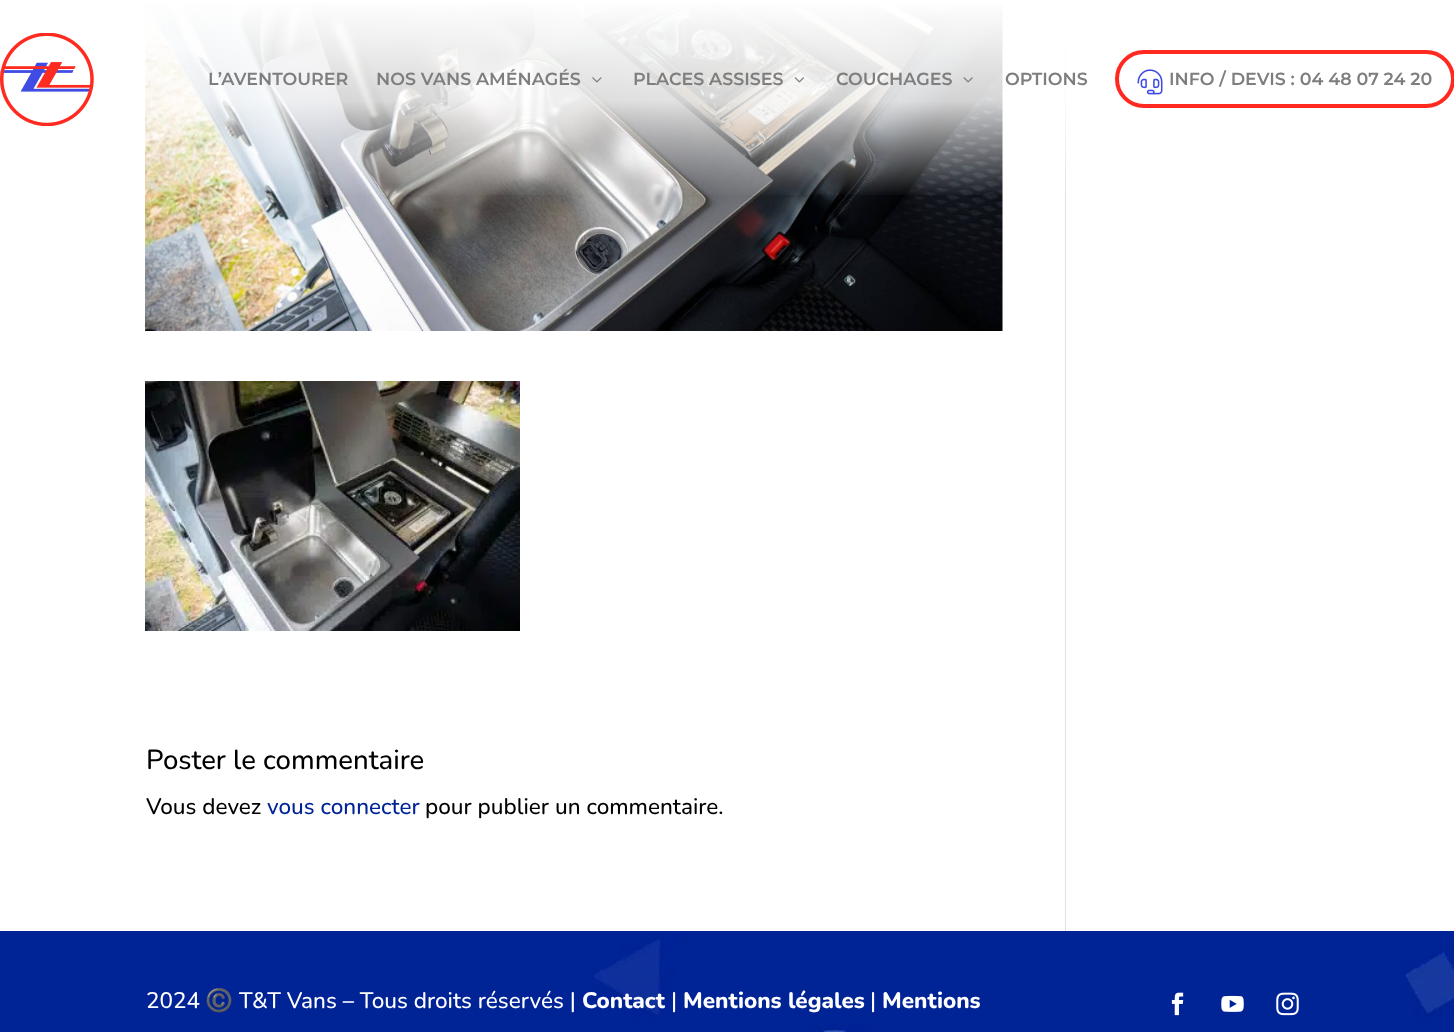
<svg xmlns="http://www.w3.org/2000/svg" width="1454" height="1032">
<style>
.a{font:600 17.5px Montserrat;fill:#7e7e7e}
.b{font:500 27.5px Nunito;fill:#000}
.c{font:500 22.5px Nunito;fill:#000}
.d{font:500 22.5px Nunito;fill:#002396}
.e{font:500 22.5px Nunito;fill:#fff}
.f{font:22.5px Noto Color Emoji;fill:#fff}
.g{font:800 22.5px Nunito;fill:#fff}
</style>
<defs>
<linearGradient id="g1" gradientUnits="userSpaceOnUse" x1="728" y1="0" x2="728" y2="198"><stop offset="0" stop-color="#fff"/><stop offset="0.51" stop-color="#fff" stop-opacity="0.82"/><stop offset="1" stop-color="#fff" stop-opacity="0"/></linearGradient>
</defs>
<rect width="100%" height="100%" fill="#fff"/>
<image href="6.png" x="145" y="3" width="858" height="328"/>
<path fill="#e2e2e2" d="M1065 0h1v931H1065z"/>
<path fill="url(#g1)" d="M145 0h921v195H145z"/>
<image href="1.png" x="0" y="33" width="94" height="93"/>
<image href="2.png" x="592" y="77" width="10" height="6"/>
<image href="3.png" x="794" y="77" width="10" height="6"/>
<image href="4.png" x="963" y="77" width="10" height="6"/>
<rect fill="none" stroke="#ff2920" stroke-width="4" x="1117" y="52" width="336" height="54" rx="27"/>
<image href="5.png" x="1137" y="69" width="26" height="26"/>
<image href="7.png" x="145" y="381" width="375" height="250"/>
<image href="8.png" x="0" y="931" width="1454" height="101"/>
<image href="9.png" x="1171" y="992" width="13" height="24"/>
<image href="10.png" x="1221" y="995" width="23" height="17"/>
<image href="11.png" x="1276" y="992" width="23" height="24"/>
<text class="a" x="208" y="85">L’AVENTOURER</text>
<text class="a" x="376" y="85">NOS VANS AMÉNAGÉS</text>
<text class="a" x="633" y="85">PLACES ASSISES</text>
<text class="a" x="836" y="85">COUCHAGES</text>
<text class="a" x="1005" y="85">OPTIONS</text>
<text class="a" x="1169" y="85">INFO / DEVIS : 04 48 07 24 20</text>
<text class="b" x="146" y="769">Poster le commentaire</text>
<text class="c" x="146" y="814">Vous devez</text>
<text class="d" x="267" y="814">vous connecter</text>
<text class="c" x="425" y="814">pour publier un commentaire.</text>
<text class="e" x="146" y="1008">2024</text>
<text class="f" x="205" y="1008">©️</text>
<text class="e" x="239" y="1008">T&amp;T Vans – Tous droits réservés |</text>
<text class="g" x="582" y="1008">Contact</text>
<text class="e" x="671" y="1008">|</text>
<text class="g" x="683" y="1008">Mentions légales</text>
<text class="e" x="870" y="1008">|</text>
<text class="g" x="882" y="1008">Mentions</text>
</svg>
